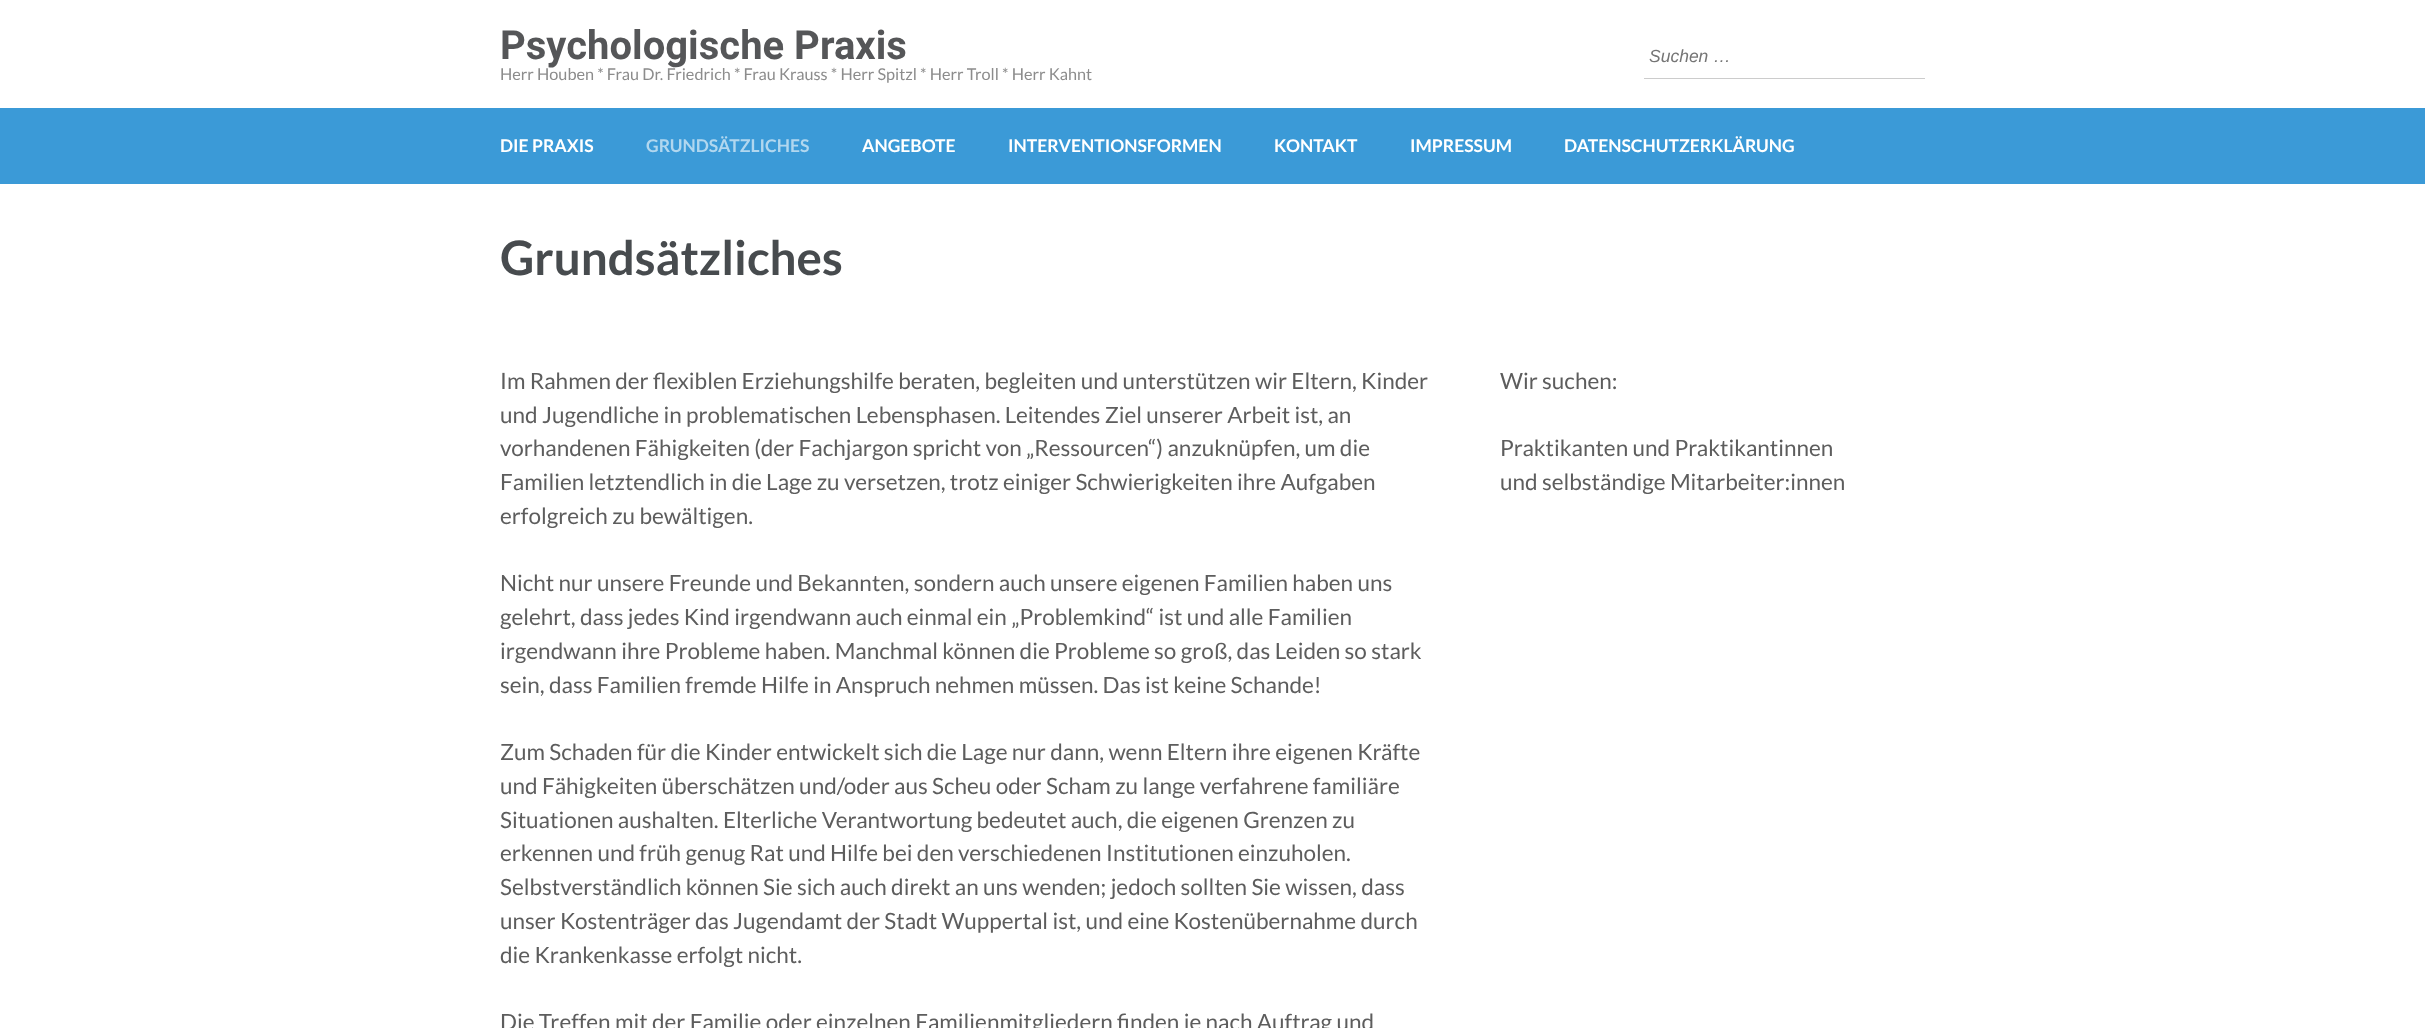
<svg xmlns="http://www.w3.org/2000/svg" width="2425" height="1028">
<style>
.a{font:bold 40px Roboto;fill:#555658}
.b{font:16.25px Lato;fill:#8c8c8c}
.c{font:italic 17.5px Liberation Sans;fill:#757575}
.d{font:bold 17.5px Lato;fill:#fff}
.e{font:bold 17.5px Lato;fill:#b1d7ef}
.f{font:bold 47.5px Lato;fill:#474b4e}
.g{font:22.5px Lato;fill:#5d5d5d}
</style>
<rect width="100%" height="100%" fill="#fff"/>
<path fill="#ccc" d="M1644 78h281v1H1644z"/>
<path fill="#3b9ad7" d="M0 108h2425v76H0z"/>
<text class="a" x="500" y="59">Psychologische Praxis</text>
<text class="b" x="500" y="80">Herr Houben * Frau Dr. Friedrich * Frau Krauss * Herr Spitzl * Herr Troll * Herr Kahnt</text>
<text class="c" x="1649" y="62">Suchen …</text>
<text class="d" x="500" y="152">DIE PRAXIS</text>
<text class="e" x="646" y="152">GRUNDSÄTZLICHES</text>
<text class="d" x="862" y="152">ANGEBOTE</text>
<text class="d" x="1008" y="152">INTERVENTIONSFORMEN</text>
<text class="d" x="1274" y="152">KONTAKT</text>
<text class="d" x="1410" y="152">IMPRESSUM</text>
<text class="d" x="1564" y="152">DATENSCHUTZERKLÄRUNG</text>
<text class="f" x="500" y="275">Grundsätzliches</text>
<text class="g" x="500" y="389">Im Rahmen der flexiblen Erziehungshilfe beraten, begleiten und unterstützen wir Eltern, Kinder</text>
<text class="g" x="500" y="423">und Jugendliche in problematischen Lebensphasen. Leitendes Ziel unserer Arbeit ist, an</text>
<text class="g" x="500" y="456">vorhandenen Fähigkeiten (der Fachjargon spricht von „Ressourcen“) anzuknüpfen, um die</text>
<text class="g" x="500" y="490">Familien letztendlich in die Lage zu versetzen, trotz einiger Schwierigkeiten ihre Aufgaben</text>
<text class="g" x="500" y="524">erfolgreich zu bewältigen.</text>
<text class="g" x="500" y="591">Nicht nur unsere Freunde und Bekannten, sondern auch unsere eigenen Familien haben uns</text>
<text class="g" x="500" y="625">gelehrt, dass jedes Kind irgendwann auch einmal ein „Problemkind“ ist und alle Familien</text>
<text class="g" x="500" y="659">irgendwann ihre Probleme haben. Manchmal können die Probleme so groß, das Leiden so stark</text>
<text class="g" x="500" y="693">sein, dass Familien fremde Hilfe in Anspruch nehmen müssen. Das ist keine Schande!</text>
<text class="g" x="500" y="760">Zum Schaden für die Kinder entwickelt sich die Lage nur dann, wenn Eltern ihre eigenen Kräfte</text>
<text class="g" x="500" y="794">und Fähigkeiten überschätzen und/oder aus Scheu oder Scham zu lange verfahrene familiäre</text>
<text class="g" x="500" y="828">Situationen aushalten. Elterliche Verantwortung bedeutet auch, die eigenen Grenzen zu</text>
<text class="g" x="500" y="861">erkennen und früh genug Rat und Hilfe bei den verschiedenen Institutionen einzuholen.</text>
<text class="g" x="500" y="895">Selbstverständlich können Sie sich auch direkt an uns wenden; jedoch sollten Sie wissen, dass</text>
<text class="g" x="500" y="929">unser Kostenträger das Jugendamt der Stadt Wuppertal ist, und eine Kostenübernahme durch</text>
<text class="g" x="500" y="963">die Krankenkasse erfolgt nicht.</text>
<text class="g" x="500" y="1030">Die Treffen mit der Familie oder einzelnen Familienmitgliedern finden je nach Auftrag und</text>
<text class="g" x="1500" y="389">Wir suchen:</text>
<text class="g" x="1500" y="456">Praktikanten und Praktikantinnen</text>
<text class="g" x="1500" y="490">und selbständige Mitarbeiter:innen</text>
</svg>
